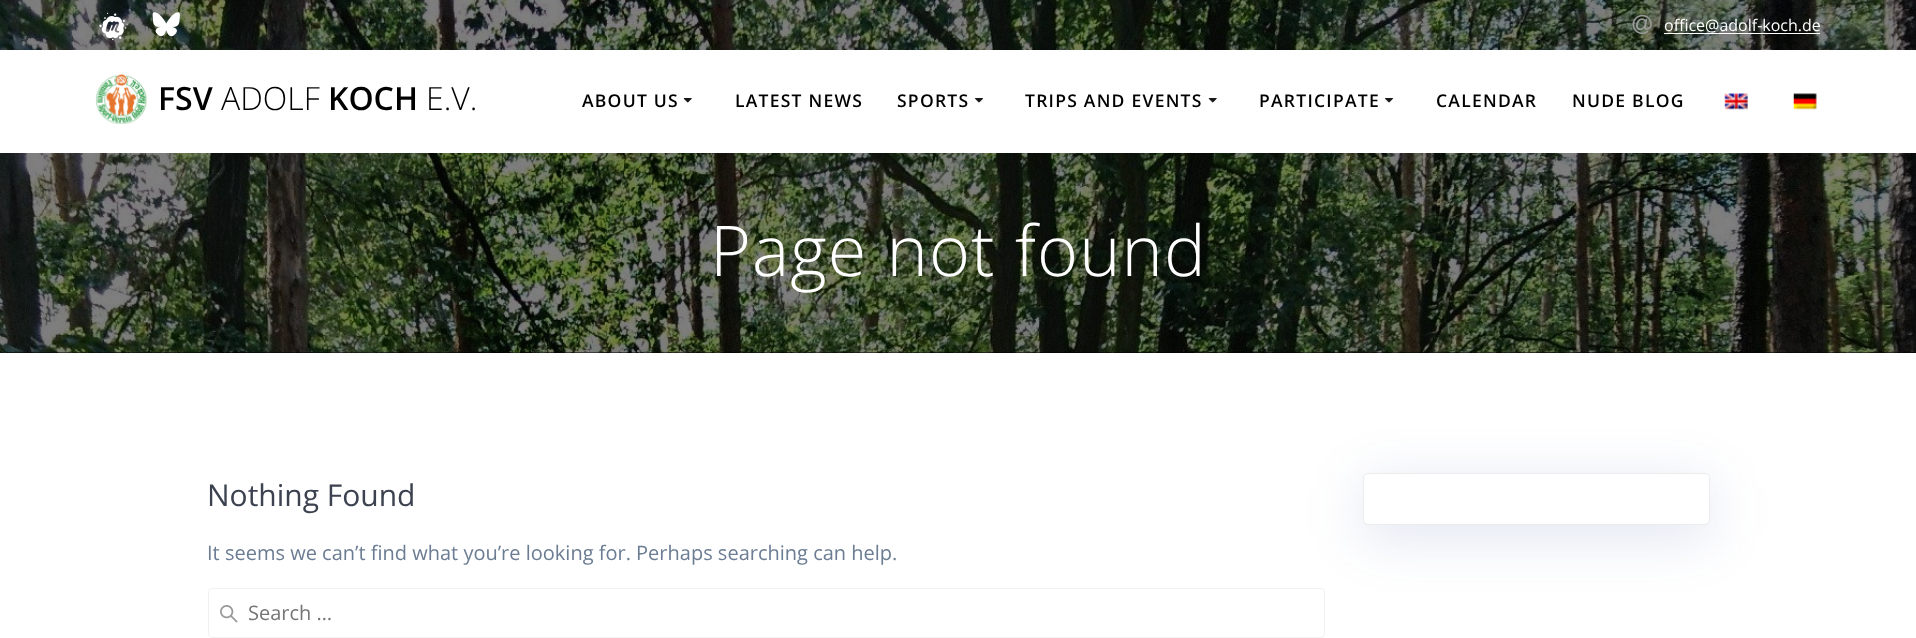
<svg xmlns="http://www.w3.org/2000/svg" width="1916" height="638">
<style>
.a{font:16px Open Sans;fill:#fff}
.b{font:600 32px Open Sans;fill:#000}
.c{font:300 32px Open Sans;fill:#000}
.d{font:600 17.5px Open Sans;letter-spacing:1.25px;fill:#000}
.e{font:300 70px Open Sans;letter-spacing:1.1px;fill:#fff}
.f{font:30px Open Sans;fill:#3c424f}
.g{font:20px Open Sans;fill:#6b7c93}
.h{font:20px Open Sans;fill:#757575}
</style>
<rect width="100%" height="100%" fill="#fff"/>
<path fill="#000" d="M0 352h1916v1H0z"/>
<image href="9.png" x="0" y="0" width="1916" height="353"/>
<image href="1.png" x="99" y="12" width="29" height="29"/>
<image href="2.png" x="152" y="12" width="28" height="25"/>
<image href="3.png" x="1632" y="14" width="20" height="21"/>
<path fill="#fff" d="M1664 33h156v1H1664z"/>
<path fill="#fff" d="M0 50h1916v103H0z"/>
<image href="4.png" x="95" y="73" width="52" height="51"/>
<image href="5.png" x="683" y="98" width="9" height="5"/>
<image href="6.png" x="975" y="98" width="8" height="5"/>
<image href="5.png" x="1208" y="98" width="9" height="5"/>
<image href="6.png" x="1385" y="98" width="8" height="5"/>
<image href="7.png" x="1724" y="93" width="24" height="17"/>
<image href="8.png" x="1793" y="93" width="24" height="17"/>
<image href="10.png" x="220" y="605" width="18" height="18"/>
<rect fill="none" stroke="#f1f1f1" x="208.5" y="588.5" width="1116" height="49" rx="3.5"/>
<rect fill="#23459826" filter="blur(28px)" x="1363" y="484" width="347" height="52" rx="5"/>
<rect fill="#fff" stroke="#ececec" x="1363.5" y="473.5" width="346" height="51" rx="4.5"/>
<text class="a" x="1664" y="31">office@adolf-koch.de</text>
<text class="b" x="158" y="110">FSV</text>
<text class="c" x="221" y="110">ADOLF</text>
<text class="b" x="328" y="110">KOCH</text>
<text class="c" x="426" y="110">E.V.</text>
<text class="d" x="582" y="107">ABOUT US</text>
<text class="d" x="735" y="107">LATEST NEWS</text>
<text class="d" x="897" y="107">SPORTS</text>
<text class="d" x="1025" y="107">TRIPS AND EVENTS</text>
<text class="d" x="1259" y="107">PARTICIPATE</text>
<text class="d" x="1436" y="107">CALENDAR</text>
<text class="d" x="1572" y="107">NUDE BLOG</text>
<text class="e" x="710" y="276">Page not found</text>
<text class="f" x="207" y="506">Nothing Found</text>
<text class="g" x="207" y="560">It seems we can’t find what you’re looking for. Perhaps searching can help.</text>
<text class="h" x="248" y="620">Search …</text>
</svg>
